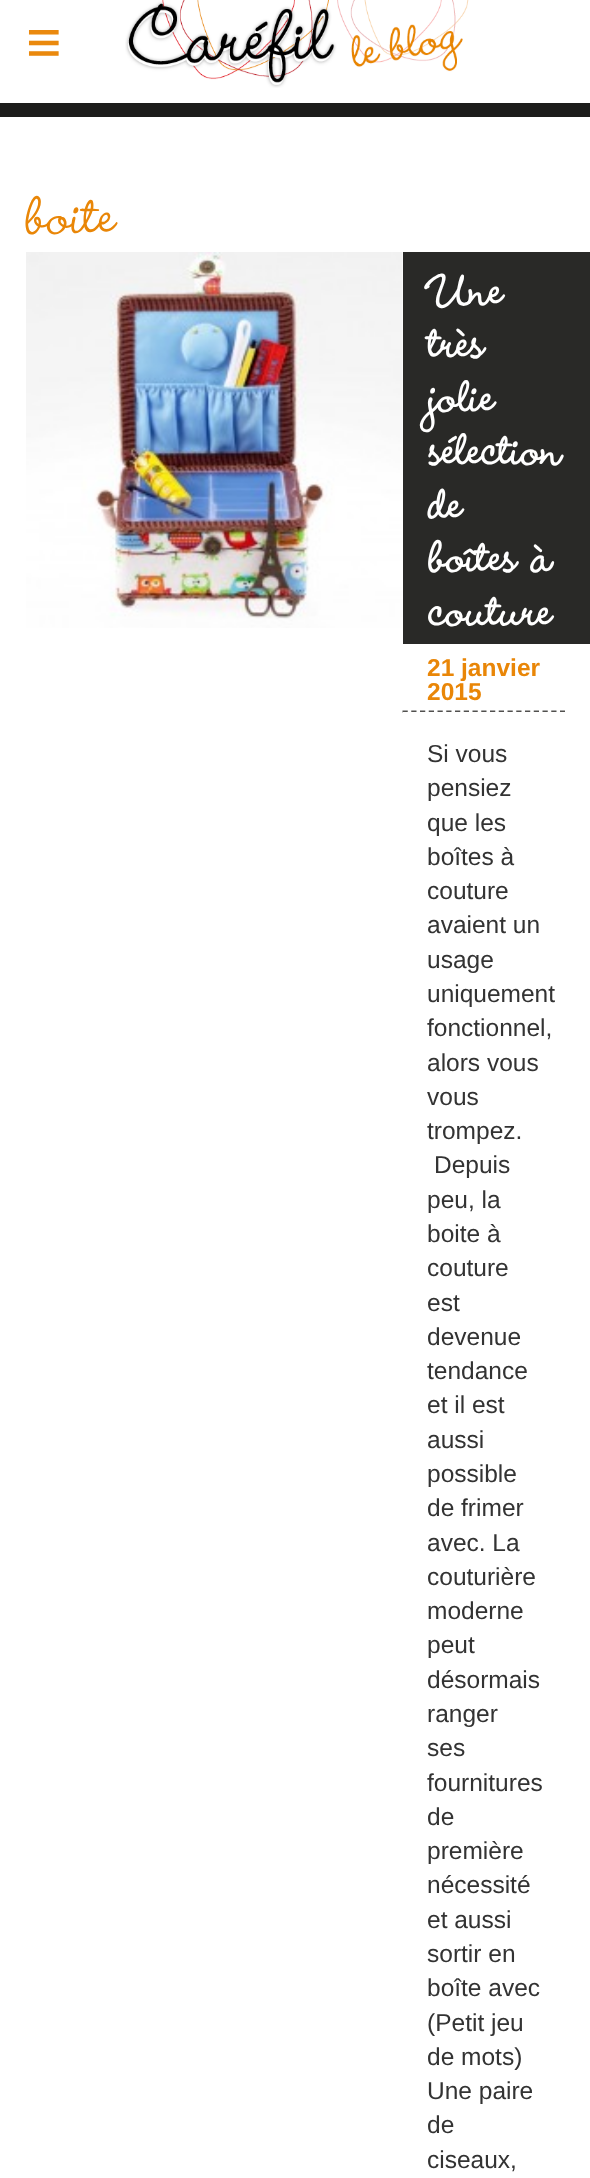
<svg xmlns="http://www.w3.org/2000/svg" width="590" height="2178">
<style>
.a{font:61px Liberation Sans;fill:#ea890e}
.b{font:500 72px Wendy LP;fill:#e98607}
.c{font:bold 59.5px Wendy LP;fill:#fff}
.d{font:bold 24.5px Liberation Sans;fill:#e98607}
.e{font:24.5px Liberation Sans;fill:#333}
</style>
<defs>
<linearGradient id="g1" gradientUnits="userSpaceOnUse" x1="484" y1="712" x2="484" y2="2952"><stop offset="0" stop-color="#fff"/><stop offset="1" stop-color="#fff" stop-opacity="0"/></linearGradient>
</defs>
<rect width="100%" height="100%" fill="#fff"/>
<path fill="#1d1d1b" d="M0 103h590v14H0z"/>
<image href="1.png" x="125" y="0" width="344" height="88"/>
<image href="2.png" x="26" y="252" width="377" height="376"/>
<path fill="none" stroke="#51504e" stroke-width="1.8" stroke-dasharray="5.25 3.5" d="M402.5 711.5h162.5"/>
<path fill="#292927" d="M403 252h187v392H403z"/>
<path fill="url(#g1)" d="M403 712h162v1H403z"/>
<text class="a" x="26" y="63">≡</text>
<text class="b" x="26" y="234">boite</text>
<text class="c" x="429" y="305">Une</text>
<text class="c" x="429" y="358">très</text>
<text class="c" x="429" y="412">jolie</text>
<text class="c" x="429" y="465">sélection</text>
<text class="c" x="429" y="519">de</text>
<text class="c" x="429" y="572">boîtes à</text>
<text class="c" x="429" y="626">couture</text>
<text class="d" x="427" y="676">21 janvier</text>
<text class="d" x="427" y="700">2015</text>
<text class="e" x="427" y="762">Si vous</text>
<text class="e" x="427" y="796">pensiez</text>
<text class="e" x="427" y="831">que les</text>
<text class="e" x="427" y="865">boîtes à</text>
<text class="e" x="427" y="899">couture</text>
<text class="e" x="427" y="933">avaient un</text>
<text class="e" x="427" y="968">usage</text>
<text class="e" x="427" y="1002">uniquement</text>
<text class="e" x="427" y="1036">fonctionnel,</text>
<text class="e" x="427" y="1071">alors vous</text>
<text class="e" x="427" y="1105">vous</text>
<text class="e" x="427" y="1139">trompez.</text>
<text class="e" x="434" y="1173">Depuis</text>
<text class="e" x="427" y="1208">peu, la</text>
<text class="e" x="427" y="1242">boite à</text>
<text class="e" x="427" y="1276">couture</text>
<text class="e" x="427" y="1311">est</text>
<text class="e" x="427" y="1345">devenue</text>
<text class="e" x="427" y="1379">tendance</text>
<text class="e" x="427" y="1413">et il est</text>
<text class="e" x="427" y="1448">aussi</text>
<text class="e" x="427" y="1482">possible</text>
<text class="e" x="427" y="1516">de frimer</text>
<text class="e" x="427" y="1551">avec. La</text>
<text class="e" x="427" y="1585">couturière</text>
<text class="e" x="427" y="1619">moderne</text>
<text class="e" x="427" y="1653">peut</text>
<text class="e" x="427" y="1688">désormais</text>
<text class="e" x="427" y="1722">ranger</text>
<text class="e" x="427" y="1756">ses</text>
<text class="e" x="427" y="1791">fournitures</text>
<text class="e" x="427" y="1825">de</text>
<text class="e" x="427" y="1859">première</text>
<text class="e" x="427" y="1893">nécessité</text>
<text class="e" x="427" y="1928">et aussi</text>
<text class="e" x="427" y="1962">sortir en</text>
<text class="e" x="427" y="1996">boîte avec</text>
<text class="e" x="427" y="2031">(Petit jeu</text>
<text class="e" x="427" y="2065">de mots)</text>
<text class="e" x="427" y="2099">Une paire</text>
<text class="e" x="427" y="2133">de</text>
<text class="e" x="427" y="2168">ciseaux,</text>
</svg>
